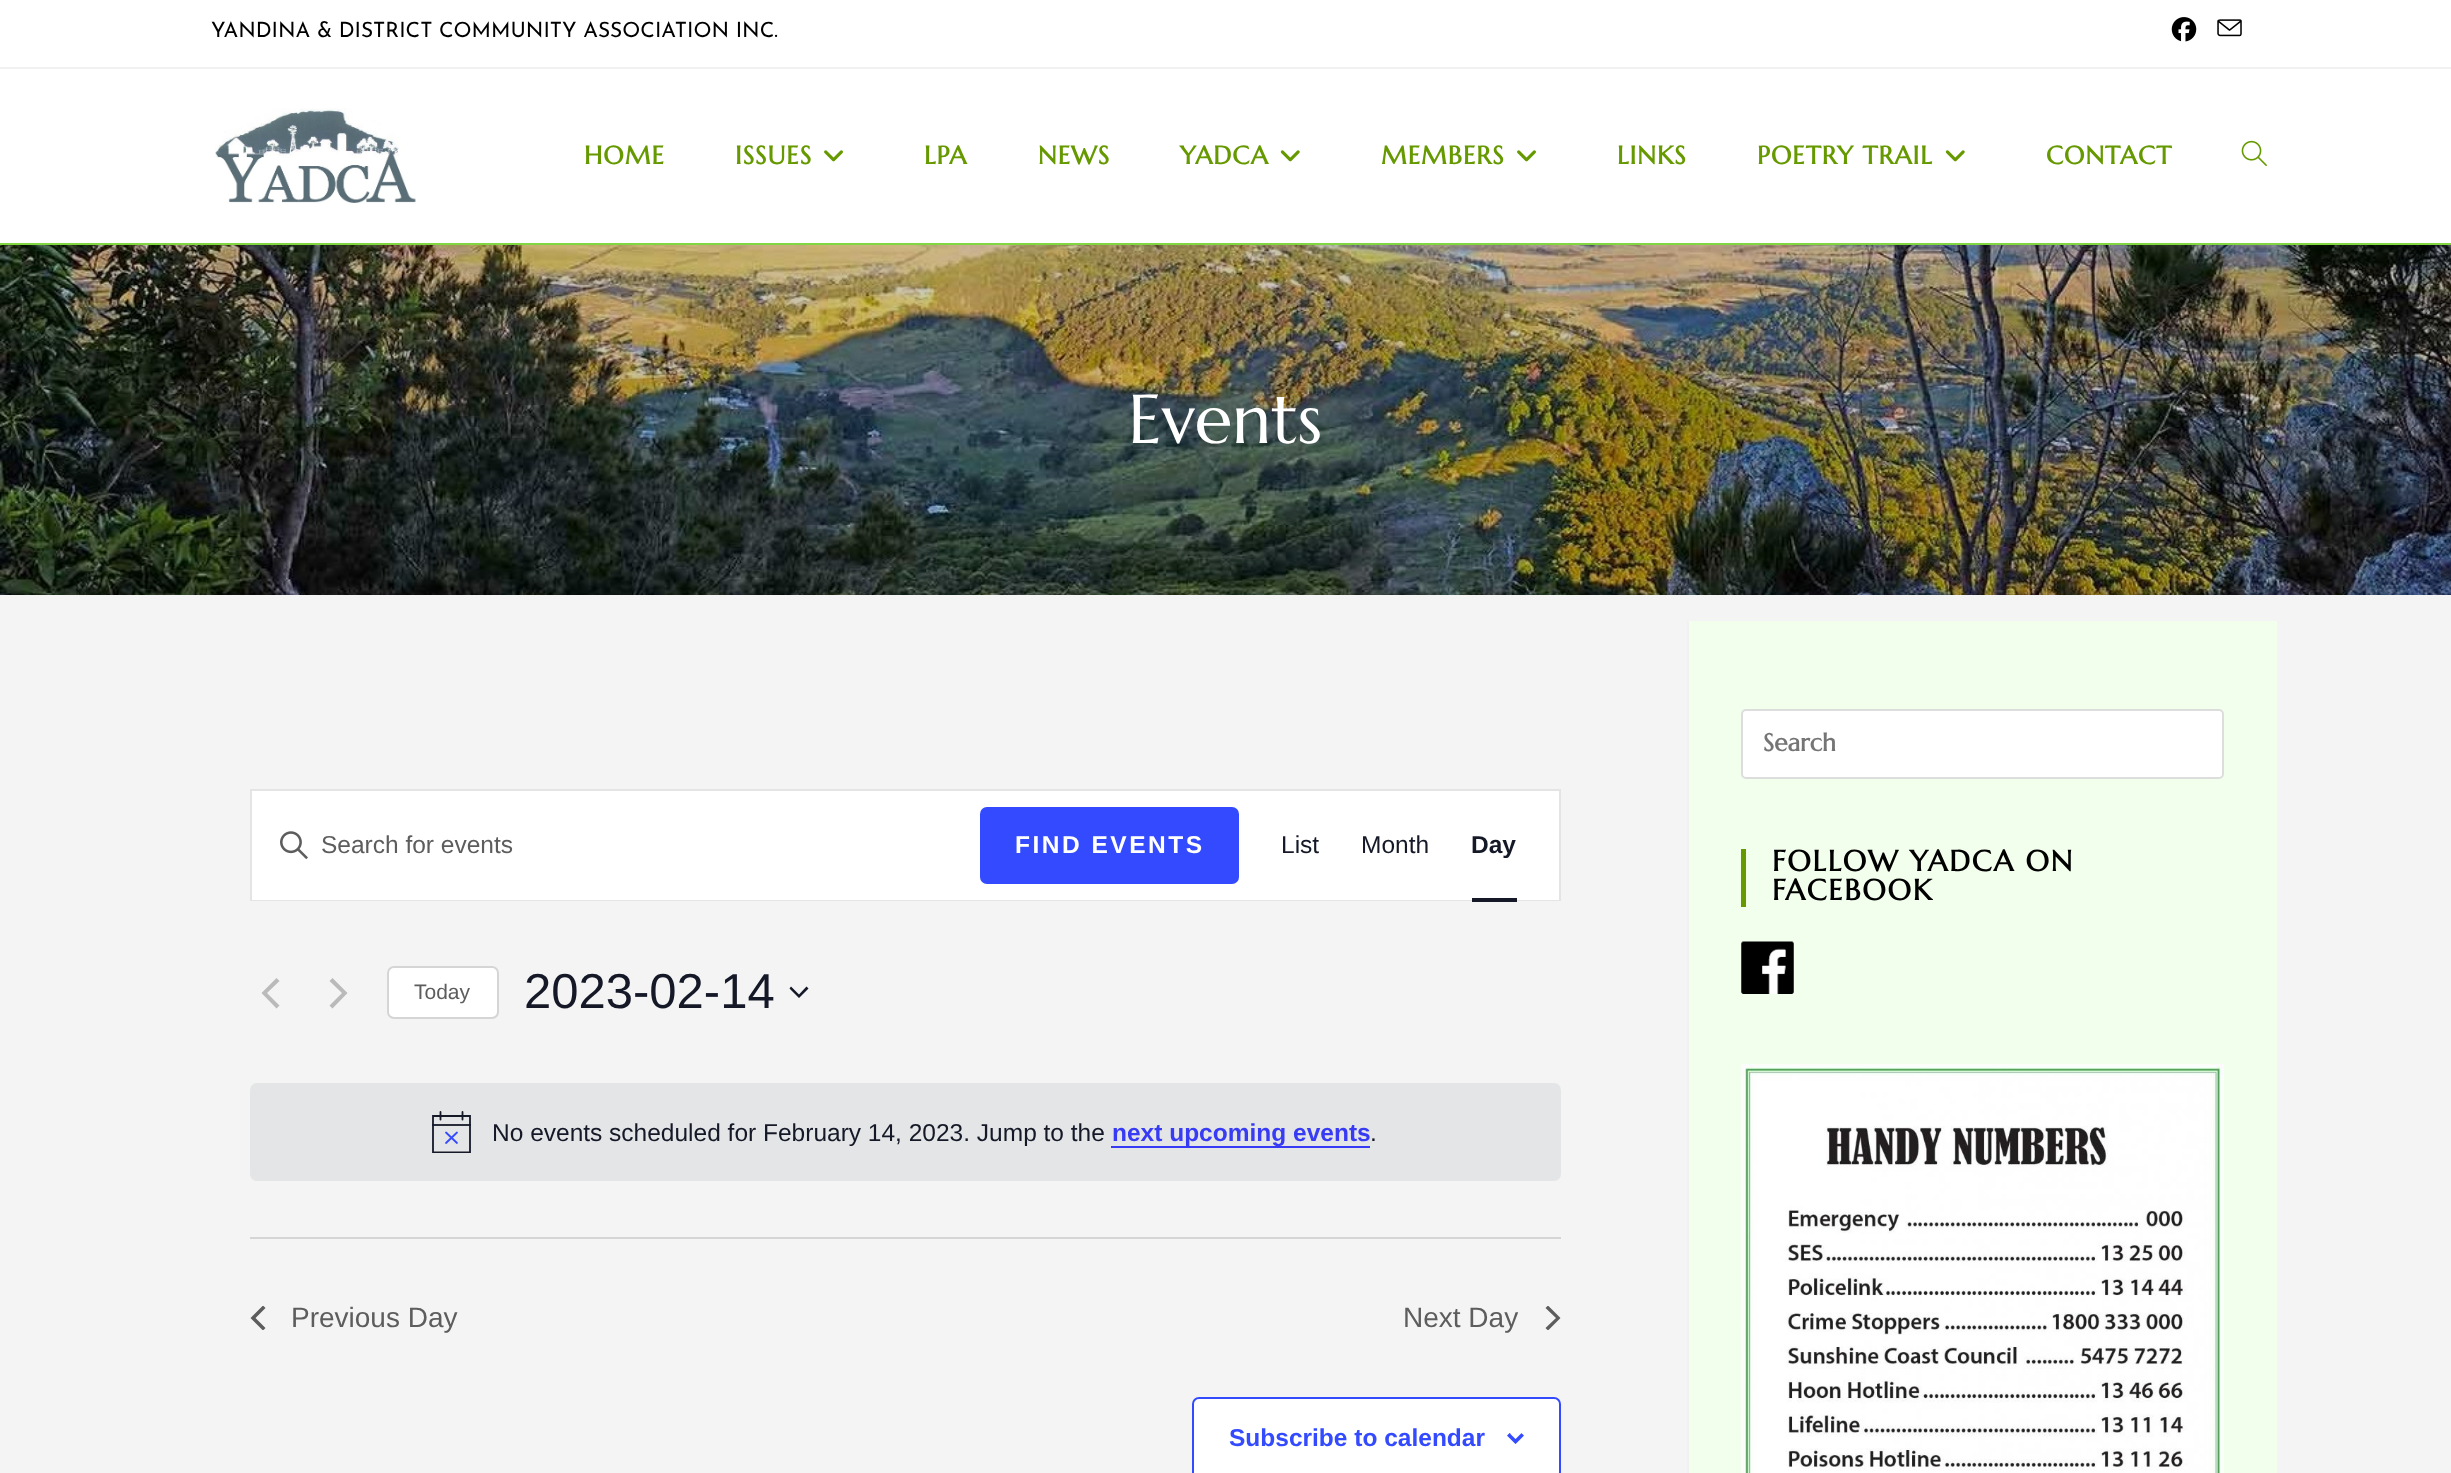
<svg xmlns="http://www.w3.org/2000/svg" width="2451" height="1473">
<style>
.a{font:21px Josefin Sans;fill:#000}
.b{font:bold 25.25px Marcellus;letter-spacing:1px;fill:#690}
.c{font:69px Marcellus;fill:#fff}
.d{font:bold 24.5px Marcellus;fill:#757575}
.e{font:bold 29.1px Marcellus;letter-spacing:1.75px;fill:#000}
.f{font:24.5px Liberation Sans;fill:#5d5d5d}
.g{font:bold 24.5px Liberation Sans;letter-spacing:2.5px;fill:#fff}
.h{font:24.5px Liberation Sans;fill:#141827}
.i{font:bold 24.5px Liberation Sans;fill:#141827}
.j{font:21px Liberation Sans;fill:#5d5d5d}
.k{font:49px Liberation Sans;fill:#141827}
.l{font:bold 24.5px Liberation Sans;fill:#383bf4}
.m{font:28px Liberation Sans;fill:#5d5d5d}
.n{font:bold 24.5px Liberation Sans;fill:#334aff}
</style>
<defs>
<clipPath id="clip1"><path d="M432 1111h39v42H432z"/></clipPath>
<clipPath id="clip2"><path d="M250 1306h16v24H250z"/></clipPath>
<clipPath id="clip3"><path d="M1545 1306h16v24H1545z"/></clipPath>
</defs>
<rect width="100%" height="100%" fill="#f4f4f4"/>
<path fill="#fff" d="M0 0h2451v67H0z"/>
<path fill="#f1f1f1" d="M0 67h2451v2H0z"/>
<image href="1.png" x="2171" y="17" width="26" height="25"/>
<image href="2.png" x="2217" y="19" width="25" height="18"/>
<path fill="#fff" d="M0 69h2451v174H0z"/>
<path fill="#81d742" d="M0 243h2451v2H0z"/>
<image href="3.png" x="215" y="108" width="201" height="96"/>
<image href="4.png" x="824" y="150" width="19" height="12"/>
<image href="5.png" x="1280" y="150" width="20" height="12"/>
<image href="4.png" x="1517" y="150" width="19" height="12"/>
<image href="5.png" x="1945" y="150" width="20" height="12"/>
<image href="6.png" x="2241" y="140" width="26" height="26"/>
<image href="7.png" x="0" y="245" width="2451" height="350"/>
<path fill="#f3ffed" d="M1689 621h588v852H1689z"/>
<rect fill="#fff" stroke="#ddd" stroke-width="2" x="1742" y="710" width="481" height="68" rx="4"/>
<path fill="#690" d="M1741 849h5v58H1741z"/>
<image href="8.png" x="1741" y="941" width="53" height="53"/>
<image href="9.png" x="1741" y="1064" width="483" height="409"/>
<path fill="#f1f1f1" d="M1687 621h2v852H1687z"/>
<path fill="none" stroke="#e4e4e4" stroke-width="2" d="M251 790h1309v110H251z"/>
<path fill="#fff" d="M252 791h1307v109H252z"/>
<image href="10.png" x="280" y="831" width="28" height="28"/>
<rect fill="#334aff" x="980" y="807" width="259" height="77" rx="7"/>
<path fill="#141827" d="M1472 898h45v4H1472z"/>
<path fill="#bababa" d="M279.5 1005.5l-3 3l-15-15.5l15-15l3 3l-12.5 12z"/>
<path fill="#bababa" d="M329.5 981l3-3l15 15l-15 15.5l-3-3l12.5-12.5z"/>
<rect fill="#fff" stroke="#d5d5d5" stroke-width="2" x="388" y="967" width="110" height="51" rx="6"/>
<path fill="#141827" fill-rule="evenodd" d="M791 986.5l8 8l7.5-8l2 2l-9.5 9.5l-9.5-9.5z"/>
<rect fill="#e4e5e6" x="250" y="1083" width="1311" height="98" rx="7"/>
<g clip-path="url(#clip1)">
<path fill="none" stroke="#141827" stroke-width="1.8" d="M433 1116h37v36.5h-37z"/>
</g>
<path fill="none" stroke="#334aff" stroke-width="1.8" stroke-linecap="round" d="M446 1132.5l11 10.5m0-10.5l-11 10.5"/>
<path fill="none" stroke="#141827" stroke-width="1.8" stroke-linecap="round" d="M440.5 1112v7.5m22-7.5v7.5"/>
<path fill="#141827e6" d="M432 1124h39v2H432z"/>
<path fill="#383bf4" d="M1111 1146h259v2H1111z"/>
<path fill="#d5d5d5" d="M250 1237h1311v2H250z"/>
<g clip-path="url(#clip2)">
<path fill="#5d5d5d" d="M265.5 1328l-2.5 2.5l-12.5-12.5l12.5-12.5l2.5 2.5l-10 10z"/>
</g>
<g clip-path="url(#clip3)">
<path fill="#5d5d5d" d="M1545.5 1308l2.5-2.5l12.5 12.5l-12.5 12.5l-2.5-2.5l10.5-10z"/>
</g>
<rect fill="#fff" stroke="#334aff" stroke-width="2" x="1193" y="1398" width="367" height="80" rx="6"/>
<image href="11.png" x="1507" y="1433" width="17" height="11"/>
<text class="a" x="211" y="37">YANDINA &amp; DISTRICT COMMUNITY ASSOCIATION INC.</text>
<text class="b" x="584" y="164">HOME</text>
<text class="b" x="735" y="164">ISSUES</text>
<text class="b" x="924" y="164">LPA</text>
<text class="b" x="1038" y="164">NEWS</text>
<text class="b" x="1180" y="164">YADCA</text>
<text class="b" x="1381" y="164">MEMBERS</text>
<text class="b" x="1617" y="164">LINKS</text>
<text class="b" x="1757" y="164">POETRY TRAIL</text>
<text class="b" x="2046" y="164">CONTACT</text>
<text class="c" x="1128" y="443">Events</text>
<text class="d" x="1763" y="751">Search</text>
<text class="e" x="1772" y="871">FOLLOW YADCA ON</text>
<text class="e" x="1772" y="900">FACEBOOK</text>
<text class="f" x="321" y="853">Search for events</text>
<text class="g" x="1015" y="853">FIND EVENTS</text>
<text class="h" x="1281" y="853">List</text>
<text class="h" x="1361" y="853">Month</text>
<text class="i" x="1471" y="853">Day</text>
<text class="j" x="414" y="999">Today</text>
<text class="k" x="524" y="1008">2023-02-14</text>
<text class="h" x="492" y="1141">No events scheduled for February 14, 2023. Jump to the</text>
<text class="l" x="1112" y="1141">next upcoming events</text>
<text class="h" x="1370" y="1141">.</text>
<text class="m" x="291" y="1327">Previous Day</text>
<text class="m" x="1403" y="1327">Next Day</text>
<text class="n" x="1229" y="1446">Subscribe to calendar</text>
</svg>
